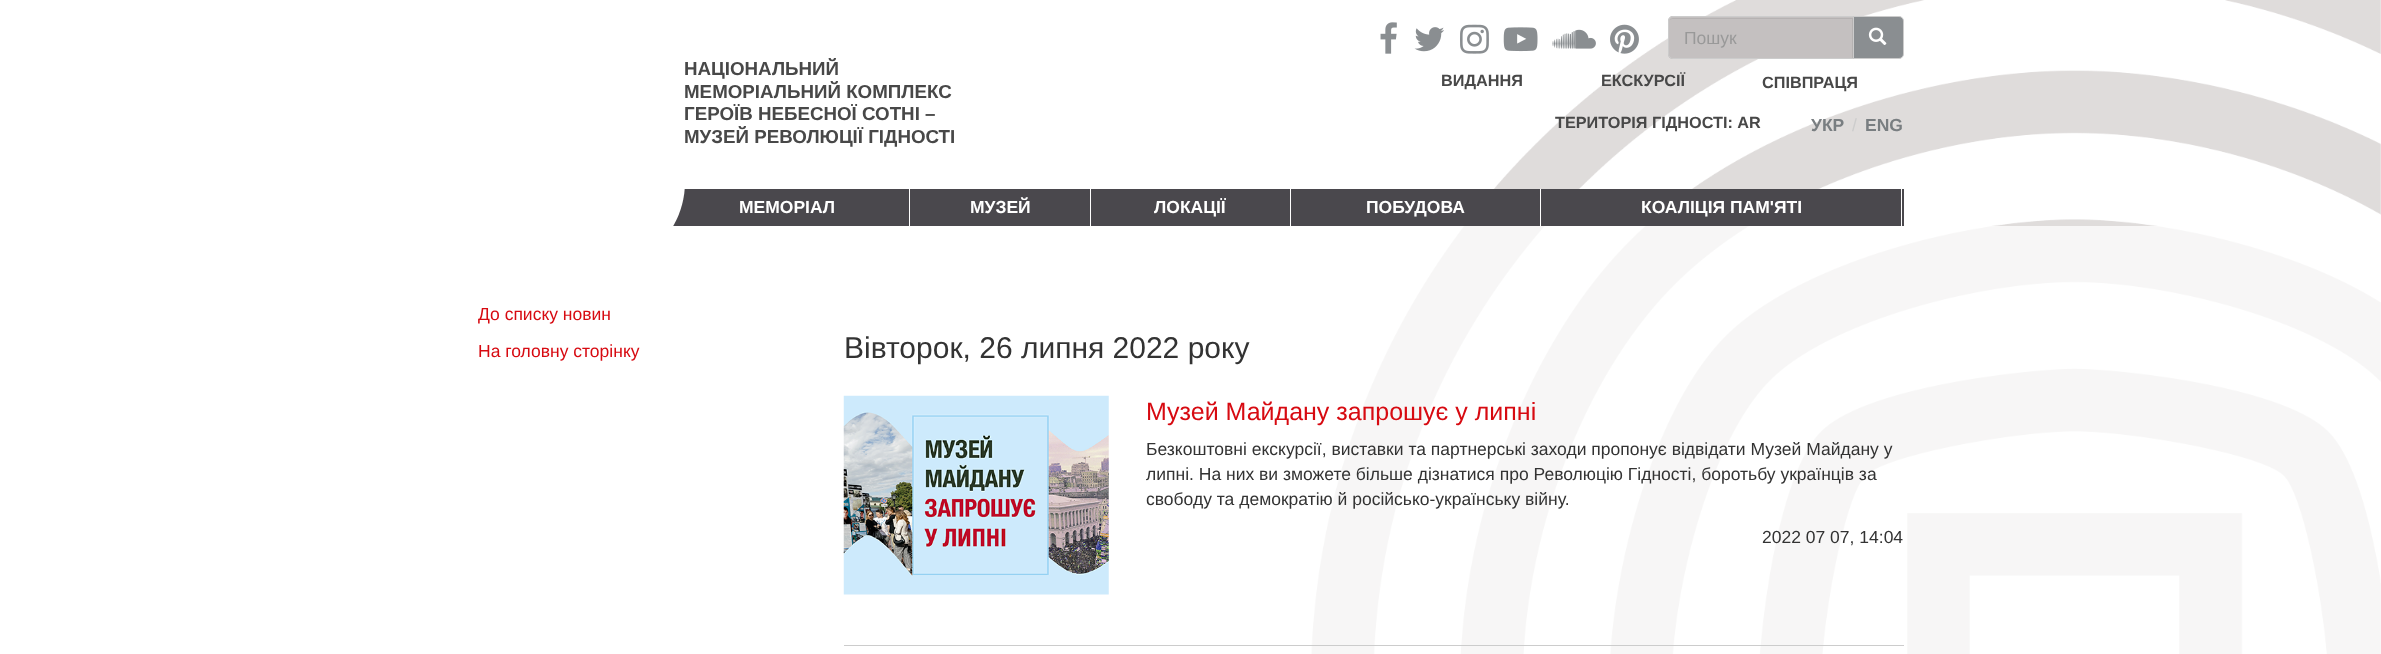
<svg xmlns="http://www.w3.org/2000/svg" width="2381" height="654">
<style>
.a{font:bold 18.75px Liberation Sans;fill:#484848}
.b{font:17.5px Liberation Sans;fill:#999}
.c{font:bold 16.25px Liberation Sans;fill:#484848}
.d{font:bold 17.5px Liberation Sans;fill:#797e81}
.e{font:17.5px Liberation Sans;fill:#ccc}
.f{font:bold 17.5px Liberation Sans;fill:#fff}
.g{font:17.5px Liberation Sans;fill:#d70a11}
.h{font:30px Liberation Sans;fill:#333}
.i{font:25px Liberation Sans;fill:#d70a11}
.j{font:17.5px Liberation Sans;fill:#333}
</style>
<rect width="100%" height="100%" fill="#fff"/>
<image href="1.png" x="1311" y="0" width="1070" height="654"/>
<path fill="#4a484d" d="M673 189h1231v37H673z"/>
<path fill="#fff" d="M479 60h206v122c0 48.5-39.5 88-88 88h-118z"/>
<image href="2.png" x="1380" y="22" width="17" height="32"/>
<image href="3.png" x="1414" y="27" width="30" height="25"/>
<image href="4.png" x="1460" y="24" width="29" height="30"/>
<image href="5.png" x="1503" y="27" width="35" height="25"/>
<image href="6.png" x="1552" y="29" width="44" height="20"/>
<image href="7.png" x="1610" y="24" width="29" height="30"/>
<path fill="#c4c0c0" d="M1673 16h181v43h-181c-3 0-5-2-5-5v-33c0-3 2-5 5-5z"/>
<path fill="#b5b2b2" d="M1672 19h180v39h1v-40h-180c-1 0-3 1-3 2z"/>
<path fill="none" stroke="#ccc" d="M1673 16.5h180.5v42h-180.5c-2.5 0-4.5-2-4.5-4.5v-33c0-2.5 2-4.5 4.5-4.5z"/>
<path fill="#8a8e91" stroke="#ccc" d="M1853.5 16.5h45.5c2.5 0 4.5 2 4.5 4.5v33c0 2.5-2 4.5-4.5 4.5h-45.5z"/>
<image href="8.png" x="1868" y="27" width="19" height="18"/>
<path fill="#ffffffbf" d="M1311 226h1070v428H1311z"/>
<path fill="#fff" d="M909 189h1v37H909z"/>
<path fill="#fff" d="M1090 189h1v37H1090z"/>
<path fill="#fff" d="M1290 189h1v37H1290z"/>
<path fill="#fff" d="M1540 189h1v37H1540z"/>
<path fill="#fff" d="M1901 189h1v37H1901z"/>
<path fill="#ccc" d="M844 645h1060v1H844z"/>
<image href="9.png" x="843" y="395" width="266" height="200"/>
<text class="a" x="684" y="75">НАЦІОНАЛЬНИЙ</text>
<text class="a" x="684" y="98">МЕМОРІАЛЬНИЙ КОМПЛЕКС</text>
<text class="a" x="684" y="120">ГЕРОЇВ НЕБЕСНОЇ СОТНІ –</text>
<text class="a" x="684" y="143">МУЗЕЙ РЕВОЛЮЦІЇ ГІДНОСТІ</text>
<text class="b" x="1684" y="44">Пошук</text>
<text class="c" x="1441" y="86">ВИДАННЯ</text>
<text class="c" x="1601" y="86">ЕКСКУРСІЇ</text>
<text class="c" x="1762" y="88">СПІВПРАЦЯ</text>
<text class="c" x="1555" y="128">ТЕРИТОРІЯ ГІДНОСТІ: AR</text>
<text class="d" x="1811" y="131">УКР</text>
<text class="e" x="1852" y="131">/</text>
<text class="d" x="1865" y="131">ENG</text>
<text class="f" x="739" y="213">МЕМОРІАЛ</text>
<text class="f" x="970" y="213">МУЗЕЙ</text>
<text class="f" x="1154" y="213">ЛОКАЦІЇ</text>
<text class="f" x="1366" y="213">ПОБУДОВА</text>
<text class="f" x="1641" y="213">КОАЛІЦІЯ ПАМ'ЯТІ</text>
<text class="g" x="478" y="320">До списку новин</text>
<text class="g" x="478" y="357">На головну сторінку</text>
<text class="h" x="844" y="358">Вівторок, 26 липня 2022 року</text>
<text class="i" x="1146" y="420">Музей Майдану запрошує у липні</text>
<text class="j" x="1146" y="455">Безкоштовні екскурсії, виставки та партнерські заходи пропонує відвідати Музей Майдану у</text>
<text class="j" x="1146" y="480">липні. На них ви зможете більше дізнатися про Революцію Гідності, боротьбу українців за</text>
<text class="j" x="1146" y="505">свободу та демократію й російсько-українську війну.</text>
<text class="j" x="1762" y="543">2022 07 07, 14:04</text>
</svg>
